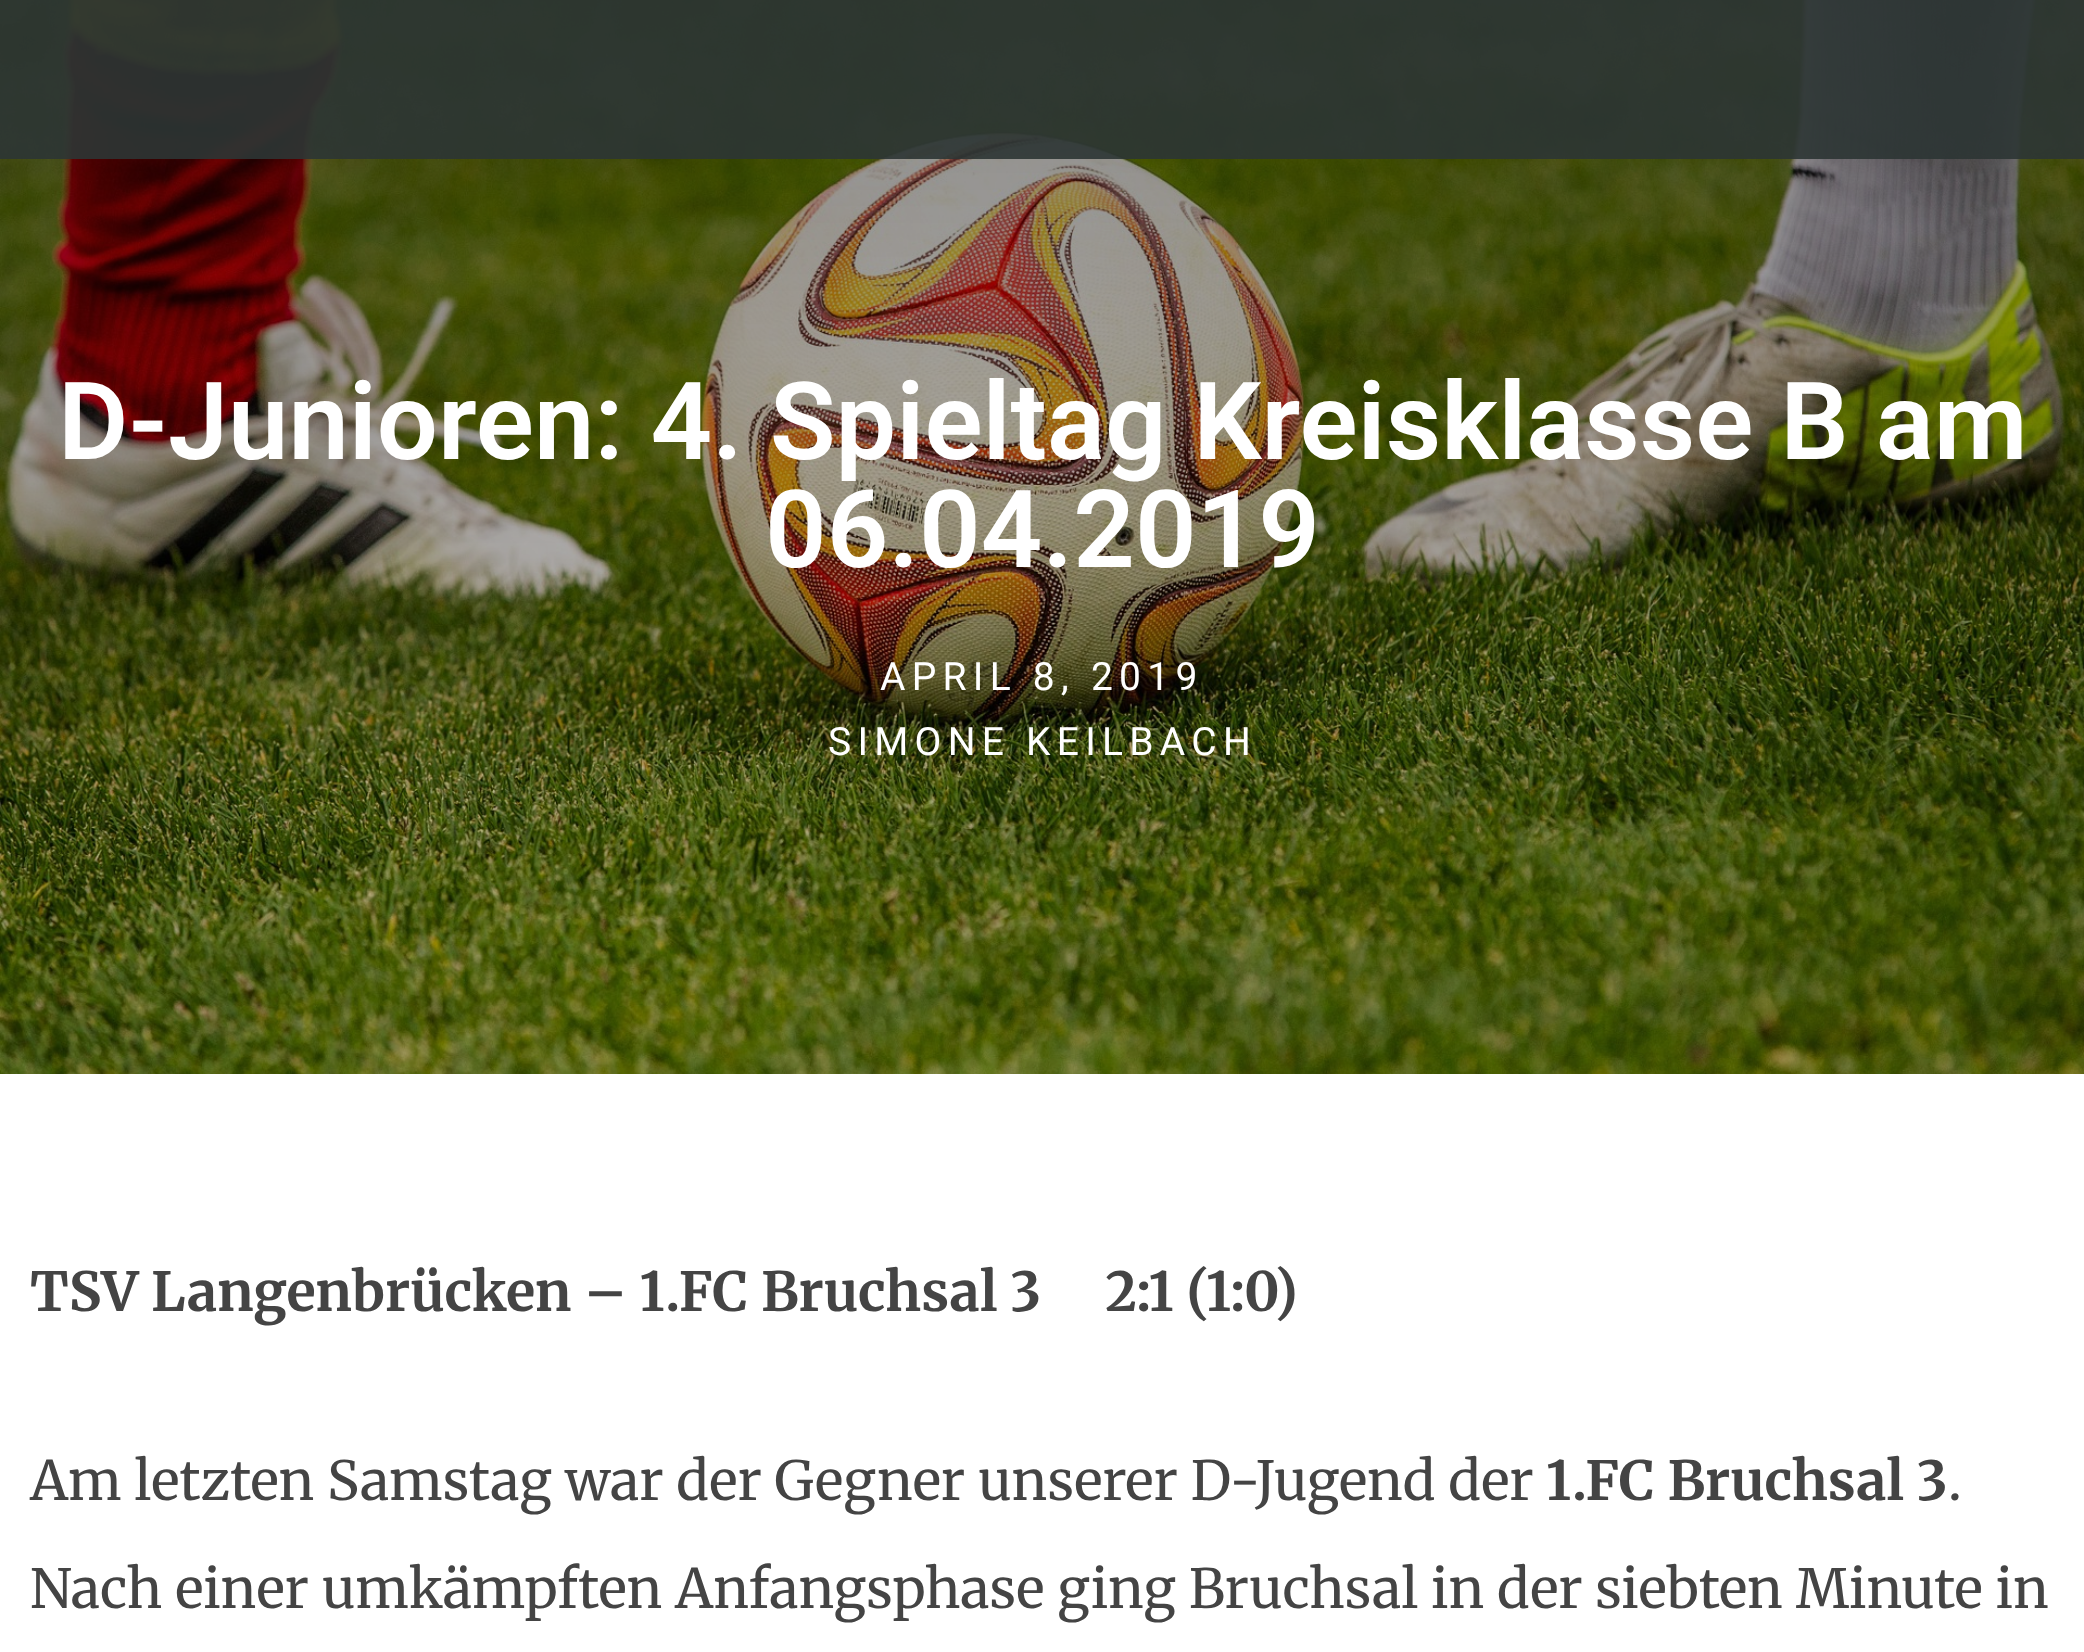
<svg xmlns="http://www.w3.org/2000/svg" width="2084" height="1652">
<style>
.a{font:600 108px Roboto;fill:#fff}
.b{font:39px Roboto;letter-spacing:6.25px;fill:#fff}
.c{font:bold 54px Merriweather;fill:#444}
.d{font:54px Merriweather;fill:#444}
</style>
<rect width="100%" height="100%" fill="#fff"/>
<image href="1.png" x="0" y="0" width="2084" height="1074"/>
<path fill="#2c3534e6" d="M0 0h2084v159H0z"/>
<text class="a" x="58" y="459">D-Junioren: 4. Spieltag Kreisklasse B am</text>
<text class="a" x="765" y="567">06.04.2019</text>
<text class="b" x="880" y="690">APRIL 8, 2019</text>
<text class="b" x="828" y="755">SIMONE KEILBACH</text>
<text class="c" xml:space="preserve" x="30" y="1311">TSV Langenbrücken – 1.FC Bruchsal 3     2:1 (1:0)</text>
<text class="d" x="30" y="1500">Am letzten Samstag war der Gegner unserer D-Jugend der</text>
<text class="c" x="1546" y="1500">1.FC Bruchsal 3</text>
<text class="d" x="1948" y="1500">.</text>
<text class="d" x="30" y="1608">Nach einer umkämpften Anfangsphase ging Bruchsal in der siebten Minute in</text>
</svg>
